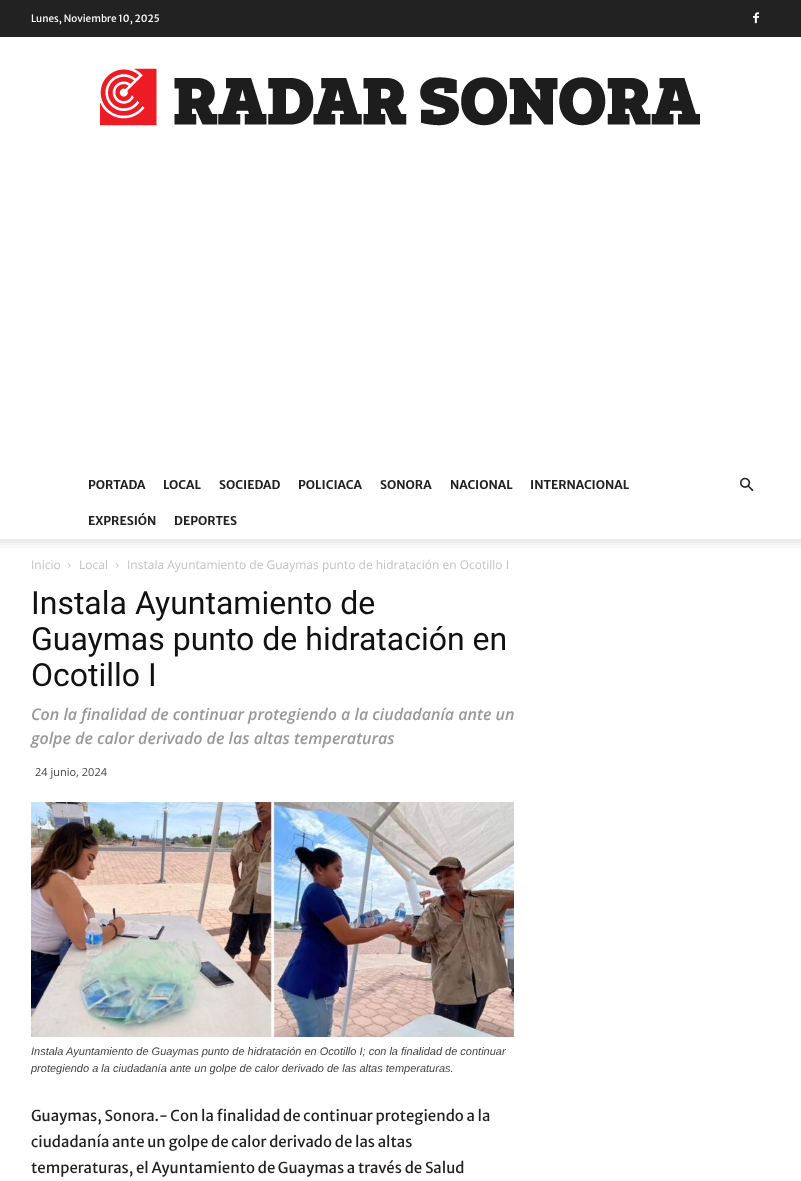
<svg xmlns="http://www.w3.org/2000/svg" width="801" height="1181">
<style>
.a{font:10px Merriweather Sans;fill:#fff}
.b{font:bold 12px Merriweather Sans;fill:#222}
.c{font:12px Open Sans;fill:#c3c3c3}
.d{font:32px Roboto;fill:#111}
.e{font:italic 600 16px Open Sans;fill:#999}
.f{font:11px Open Sans;fill:#444}
.g{font:italic 11px Liberation Sans;fill:#444}
.h{font:15px Merriweather Sans;fill:#222}
</style>
<rect width="100%" height="100%" fill="#fff"/>
<path fill="#222" d="M0 0h801v37H0z"/>
<image href="1.png" x="753" y="12" width="6" height="12"/>
<image href="2.png" x="100" y="68" width="600" height="58"/>
<image href="3.png" x="740" y="477" width="14" height="15"/>
<image href="4.png" x="0" y="539" width="801" height="9"/>
<image href="5.png" x="68" y="563" width="3" height="5"/>
<image href="5.png" x="116" y="563" width="3" height="5"/>
<image href="6.png" x="31" y="802" width="483" height="235"/>
<text class="a" x="31" y="22">Lunes, Noviembre 10, 2025</text>
<text class="b" x="88" y="489">PORTADA</text>
<text class="b" x="163" y="489">LOCAL</text>
<text class="b" x="219" y="489">SOCIEDAD</text>
<text class="b" x="298" y="489">POLICIACA</text>
<text class="b" x="380" y="489">SONORA</text>
<text class="b" x="450" y="489">NACIONAL</text>
<text class="b" x="530" y="489">INTERNACIONAL</text>
<text class="b" x="88" y="525">EXPRESIÓN</text>
<text class="b" x="174" y="525">DEPORTES</text>
<text class="c" x="31" y="569">Inicio</text>
<text class="c" x="79" y="569">Local</text>
<text class="c" x="127" y="569">Instala Ayuntamiento de Guaymas punto de hidratación en Ocotillo I</text>
<text class="d" x="31" y="614">Instala Ayuntamiento de</text>
<text class="d" x="31" y="650">Guaymas punto de hidratación en</text>
<text class="d" x="31" y="686">Ocotillo I</text>
<text class="e" x="31" y="720">Con la finalidad de continuar protegiendo a la ciudadanía ante un</text>
<text class="e" x="31" y="744">golpe de calor derivado de las altas temperaturas</text>
<text class="f" x="35" y="776">24 junio, 2024</text>
<text class="g" x="31" y="1055">Instala Ayuntamiento de Guaymas punto de hidratación en Ocotillo I; con la finalidad de continuar</text>
<text class="g" x="31" y="1072">protegiendo a la ciudadanía ante un golpe de calor derivado de las altas temperaturas.</text>
<text class="h" x="31" y="1121">Guaymas, Sonora.- Con la finalidad de continuar protegiendo a la</text>
<text class="h" x="31" y="1147">ciudadanía ante un golpe de calor derivado de las altas</text>
<text class="h" x="31" y="1173">temperaturas, el Ayuntamiento de Guaymas a través de Salud</text>
</svg>
